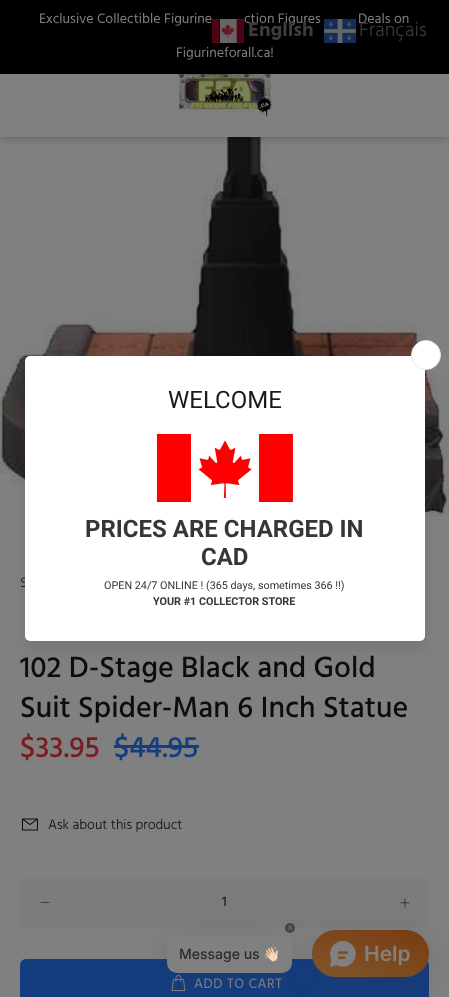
<svg xmlns="http://www.w3.org/2000/svg" width="449" height="997">
<style>
.a{font:14px Hind;fill:#808080}
.b{font:bold 20px Hind;fill:#3c3c3c}
.c{font:300 20px Hind;fill:#3c3c3c}
.d{font:300 14px Hind;fill:#0d0d0d}
.e{font:bold 10.8px Roboto;fill:#363636}
.f{font:10.8px Roboto;fill:#363636}
.g{font:bold 24px Roboto;fill:#363636}
.h{font:24px Roboto;fill:#1a1a1a}
.i{font:500 30px Hind;fill:#0d0d0d}
.j{font:500 30px Hind;fill:#7c1b1f}
.k{font:500 30px Hind;fill:#143d7f}
.l{font:500 14px Hind;fill:#1a1a1a}
.m{font:14px Hind;letter-spacing:0.5px;fill:#808080}
.n{font:500 14px Inter;fill:#2b2b2b}
.o{font:14px Noto Color Emoji;fill:#2b2b2b}
.p{font:600 21px Inter;fill:#808080}
</style>
<defs>
<clipPath id="clip1"><path d="M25 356h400v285H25z"/></clipPath>
<linearGradient id="g1" gradientUnits="userSpaceOnUse" x1="384" y1="914" x2="357" y2="993"><stop offset="0" stop-color="#793b11"/><stop offset="1" stop-color="#80562c"/></linearGradient>
</defs>
<rect width="100%" height="100%" fill="#808080"/>
<image href="5.png" x="0" y="137" width="449" height="379"/>
<path fill="#0000004d" filter="blur(4px)" d="M0 0h449v137H0z"/>
<path fill="#808080" d="M0 74h449v63H0z"/>
<image href="1.png" x="177" y="74" width="95" height="43"/>
<path fill="#000" d="M0 0h449v74H0z"/>
<image href="2.png" x="212" y="19" width="32" height="24"/>
<image href="3.png" x="324" y="19" width="32" height="24"/>
<rect fill="#0000001a" filter="blur(7.5px)" x="28" y="369" width="394" height="279" rx="2"/>
<g clip-path="url(#clip1)">
<rect fill="#0000001f" filter="blur(10px)" x="28" y="359" width="394" height="279" rx="2"/>
</g>
<path fill="#143d7f" d="M114 745h85v3H114z"/>
<image href="6.png" x="21" y="818" width="17" height="13"/>
<rect fill="#7c7c7d" x="20" y="878" width="409" height="50" rx="6"/>
<path fill="#0d0d0d" d="M49.5 902.5v.5h-9l.5-.5z"/>
<image href="7.png" x="400" y="898" width="10" height="10"/>
<rect fill="#143d7f" x="20" y="959" width="409" height="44" rx="6"/>
<image href="8.png" x="171" y="975" width="15" height="17"/>
<rect fill="#32323833" filter="blur(14.5px)" x="312" y="937" width="117" height="47" rx="23.5"/>
<rect fill="url(#g1)" x="312" y="930" width="117" height="47" rx="23.5"/>
<ellipse fill="url(#g1)" cx="370.5" cy="953.5" rx="58.5" ry="23.5"/>
<image href="10.png" x="330" y="940" width="26" height="27"/>
<rect fill="#32323833" filter="blur(14.5px)" x="167" y="943" width="125" height="37" rx="10"/>
<rect fill="#808080" x="167" y="936" width="125" height="37" rx="10"/>
<circle fill="#1818188c" cx="290" cy="928" r="5"/>
<image href="9.png" x="287" y="925" width="6" height="5"/>
<text class="a" x="39" y="23">Exclusive Collectible Figurine</text>
<text class="a" x="244" y="23">ction Figures</text>
<text class="a" x="358" y="23">Deals on</text>
<text class="a" x="176" y="57">Figurineforall.ca!</text>
<text class="b" x="248" y="36">English</text>
<text class="c" x="359" y="36">Français</text>
<text class="d" x="20" y="587">S</text>
<rect fill="#fff" x="25" y="356" width="400" height="285" rx="5"/>
<circle fill="#fff" stroke="#e2e8f0" cx="426" cy="355" r="14.5"/>
<text class="e" x="153" y="605">YOUR #1 COLLECTOR STORE</text>
<text class="f" x="104" y="589">OPEN 24/7 ONLINE ! (365 days, sometimes 366 !!)</text>
<text class="g" x="201" y="565">CAD</text>
<text class="g" x="85" y="537">PRICES ARE CHARGED IN</text>
<image href="4.png" x="156" y="434" width="137" height="68"/>
<text class="h" x="168" y="408">WELCOME</text>
<text class="i" x="20" y="677">102 D-Stage Black and Gold</text>
<text class="i" x="20" y="717">Suit Spider-Man 6 Inch Statue</text>
<text class="j" x="20" y="757">$33.95</text>
<text class="k" x="114" y="757">$44.95</text>
<text class="d" x="48" y="829">Ask about this product</text>
<text class="l" x="222" y="906">1</text>
<text class="m" x="194" y="988">ADD TO CART</text>
<text class="n" x="179" y="959">Message us</text>
<text class="o" x="263" y="959">👋🏻</text>
<text class="p" x="364" y="961">Help</text>
</svg>
